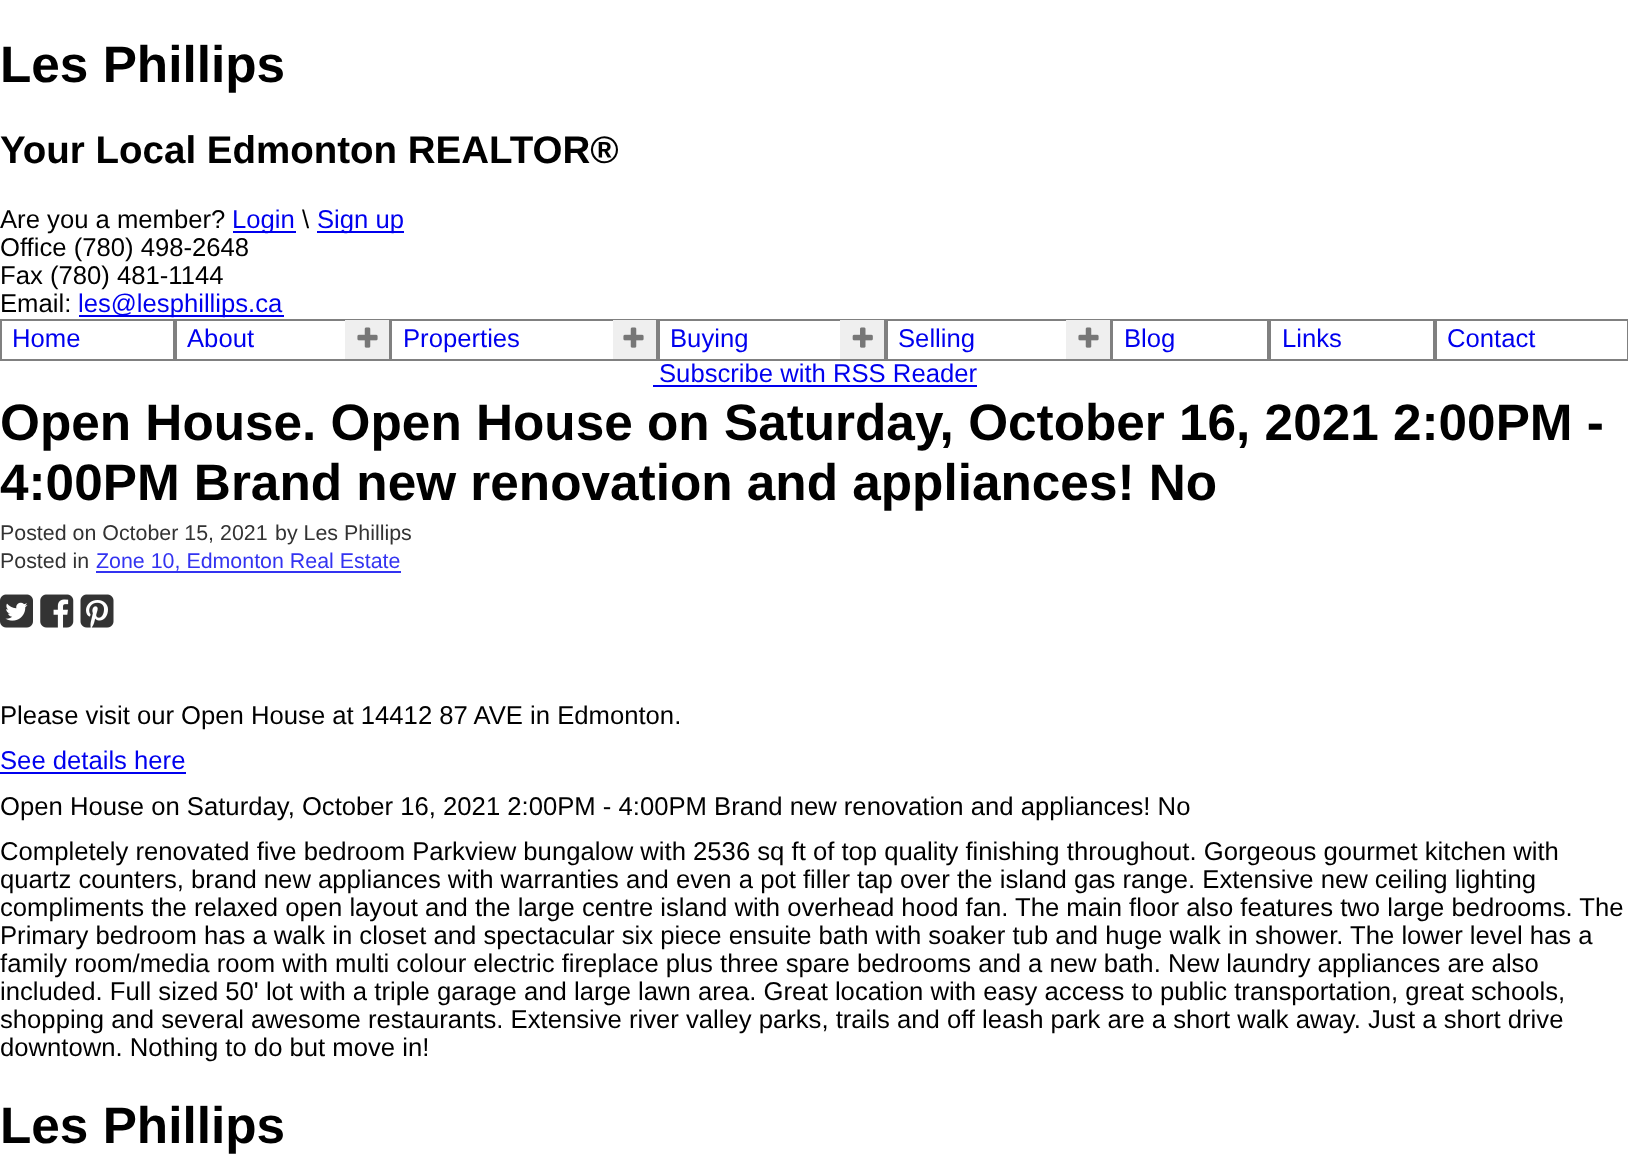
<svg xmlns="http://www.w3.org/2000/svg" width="1628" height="1154">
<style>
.a{font:bold 51.3px Liberation Sans;fill:#000}
.b{font:bold 38.5px Liberation Sans;fill:#000}
.c{font:25.67px Liberation Sans;fill:#000}
.d{font:25.67px Liberation Sans;fill:#00e}
.e{font:21.4px Liberation Sans;fill:#333}
.f{font:21.4px Liberation Sans;fill:#3333f1}
</style>
<rect width="100%" height="100%" fill="#fff"/>
<path fill="#00e" d="M233 231h63v2H233z"/>
<path fill="#00e" d="M317 231h87v2H317z"/>
<path fill="#00e" d="M79 315h205v2H79z"/>
<path fill="none" stroke="#808080" stroke-width="2" d="M1 320h173v40H1z"/>
<path fill="none" stroke="#808080" stroke-width="2" d="M176 320h213v40H176z"/>
<path fill="#efefef" d="M345 320h44v39H345z"/>
<image href="1.png" x="357" y="327" width="21" height="21"/>
<path fill="none" stroke="#808080" stroke-width="2" d="M391 320h266v40H391z"/>
<path fill="#efefef" d="M613 320h43v39H613z"/>
<image href="1.png" x="623" y="327" width="21" height="21"/>
<path fill="none" stroke="#808080" stroke-width="2" d="M659 320h226v40H659z"/>
<path fill="#efefef" d="M840 320h44v39H840z"/>
<image href="2.png" x="852" y="327" width="21" height="21"/>
<path fill="none" stroke="#808080" stroke-width="2" d="M887 320h223v40H887z"/>
<path fill="#efefef" d="M1066 320h44v39H1066z"/>
<image href="1.png" x="1078" y="327" width="21" height="21"/>
<path fill="none" stroke="#808080" stroke-width="2" d="M1112 320h156v40H1112z"/>
<path fill="none" stroke="#808080" stroke-width="2" d="M1270 320h164v40H1270z"/>
<path fill="none" stroke="#808080" stroke-width="2" d="M1436 320h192v40H1436z"/>
<path fill="#00e" d="M653 385h324v2H653z"/>
<path fill="#3333f1" d="M96 571h305v2H96z"/>
<image href="3.png" x="0" y="594" width="33" height="34"/>
<image href="4.png" x="40" y="594" width="34" height="34"/>
<image href="5.png" x="80" y="594" width="34" height="34"/>
<path fill="#00e" d="M0 772h186v2H0z"/>
<text class="a" x="0" y="82">Les Phillips</text>
<text class="b" x="0" y="163">Your Local Edmonton REALTOR®</text>
<text class="c" x="0" y="228">Are you a member?</text>
<text class="d" x="232" y="228">Login</text>
<text class="c" x="302" y="228">\</text>
<text class="d" x="317" y="228">Sign up</text>
<text class="c" x="0" y="256">Office (780) 498-2648</text>
<text class="c" x="0" y="284">Fax (780) 481-1144</text>
<text class="c" x="0" y="312">Email:</text>
<text class="d" x="78" y="312">les@lesphillips.ca</text>
<text class="d" x="12" y="347">Home</text>
<text class="d" x="187" y="347">About</text>
<text class="d" x="403" y="347">Properties</text>
<text class="d" x="670" y="347">Buying</text>
<text class="d" x="898" y="347">Selling</text>
<text class="d" x="1124" y="347">Blog</text>
<text class="d" x="1282" y="347">Links</text>
<text class="d" x="1447" y="347">Contact</text>
<text class="d" x="659" y="382">Subscribe with RSS Reader</text>
<text class="a" x="0" y="440">Open House. Open House on Saturday, October 16, 2021 2:00PM -</text>
<text class="a" x="0" y="500">4:00PM Brand new renovation and appliances! No</text>
<text class="e" x="0" y="540">Posted on October 15, 2021</text>
<text class="e" x="275" y="540">by Les Phillips</text>
<text class="e" x="0" y="568">Posted in</text>
<text class="f" x="96" y="568">Zone 10, Edmonton Real Estate</text>
<text class="c" x="0" y="724">Please visit our Open House at 14412 87 AVE in Edmonton.</text>
<text class="d" x="0" y="769">See details here</text>
<text class="c" x="0" y="815">Open House on Saturday, October 16, 2021 2:00PM - 4:00PM Brand new renovation and appliances! No</text>
<text class="c" x="0" y="860">Completely renovated five bedroom Parkview bungalow with 2536 sq ft of top quality finishing throughout. Gorgeous gourmet kitchen with</text>
<text class="c" x="0" y="888">quartz counters, brand new appliances with warranties and even a pot filler tap over the island gas range. Extensive new ceiling lighting</text>
<text class="c" x="0" y="916">compliments the relaxed open layout and the large centre island with overhead hood fan. The main floor also features two large bedrooms. The</text>
<text class="c" x="0" y="944">Primary bedroom has a walk in closet and spectacular six piece ensuite bath with soaker tub and huge walk in shower. The lower level has a</text>
<text class="c" x="0" y="972">family room/media room with multi colour electric fireplace plus three spare bedrooms and a new bath. New laundry appliances are also</text>
<text class="c" x="0" y="1000">included. Full sized 50' lot with a triple garage and large lawn area. Great location with easy access to public transportation, great schools,</text>
<text class="c" x="0" y="1028">shopping and several awesome restaurants. Extensive river valley parks, trails and off leash park are a short walk away. Just a short drive</text>
<text class="c" x="0" y="1056">downtown. Nothing to do but move in!</text>
<text class="a" x="0" y="1143">Les Phillips</text>
</svg>
